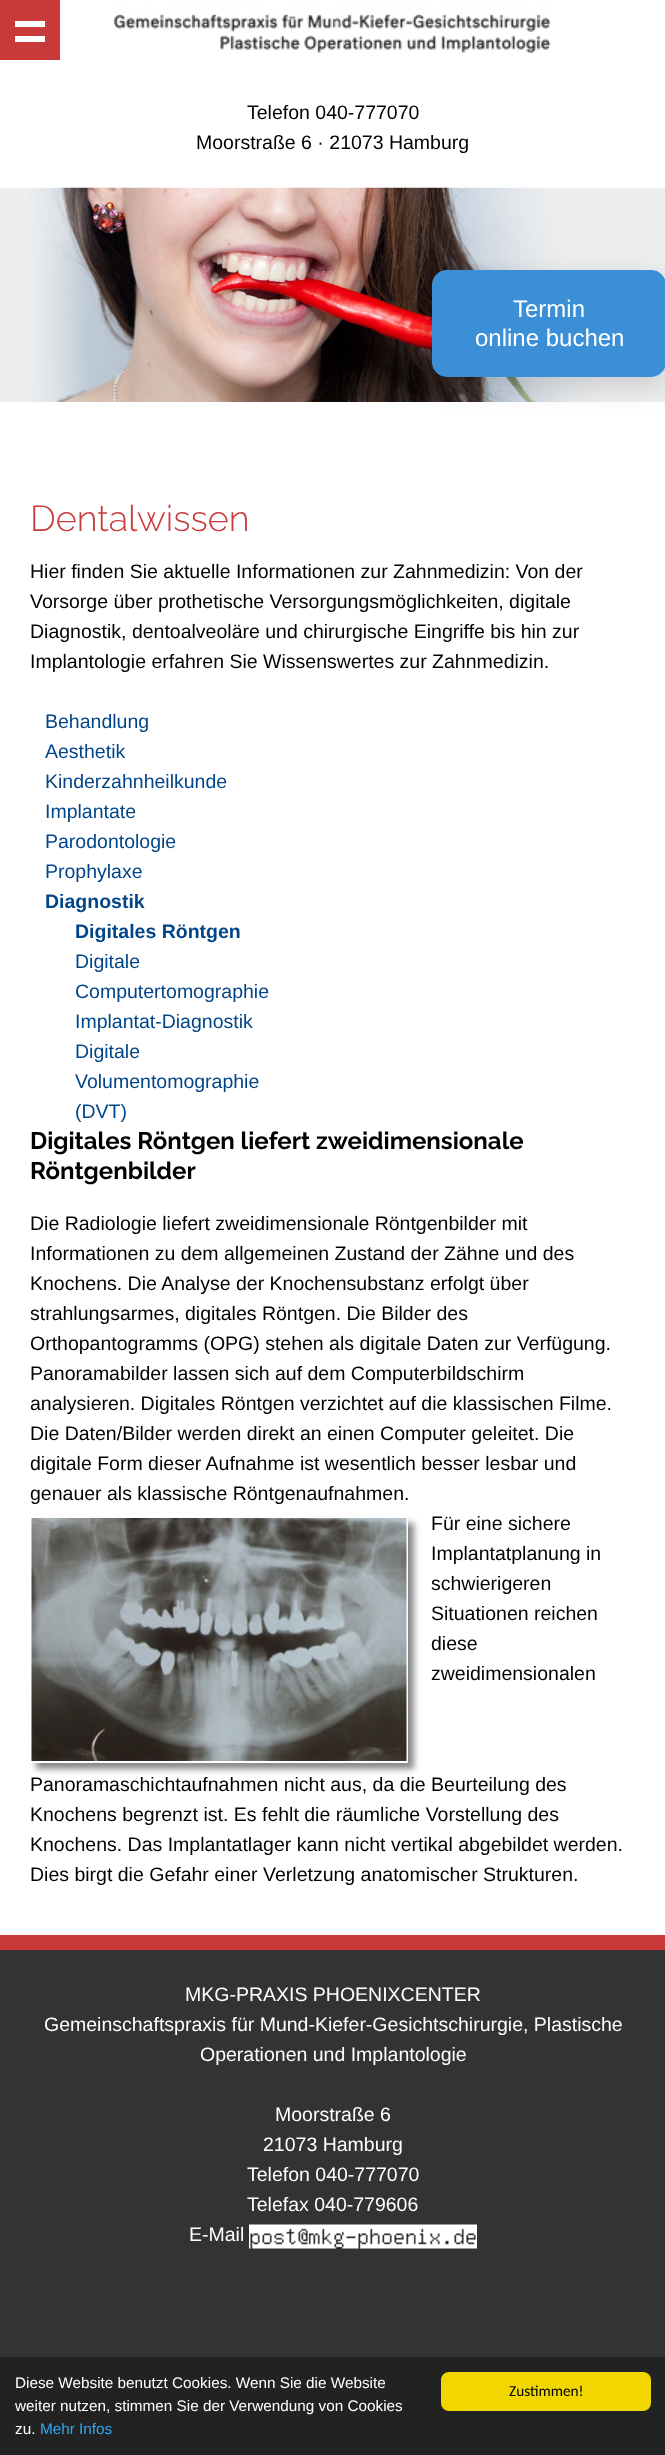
<svg xmlns="http://www.w3.org/2000/svg" width="665" height="2455">
<style>
.a{font:19.5px Liberation Sans;fill:#000}
.b{font:24px Liberation Sans;fill:#fff}
.c{font:100 36px 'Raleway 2';fill:#ca3939}
.d{font:19.5px Liberation Sans;fill:#004588}
.e{font:bold 19.5px Liberation Sans;fill:#004588}
.f{font:100 24px Raleway;fill:#000}
.g{font:19.5px Liberation Sans;fill:#fff}
.h{font:15.3px Liberation Sans;fill:#fff}
.i{font:15.3px Liberation Sans;fill:#31a8f0}
.j{font:15.3px Carlito;fill:#000}
</style>
<rect width="100%" height="100%" fill="#fff"/>
<path fill="#c93939" d="M0 0h60v60H0z"/>
<path fill="#fff" d="M15 21h30v6H15z"/>
<path fill="#fff" d="M15 36h30v6H15z"/>
<image href="1.png" x="113" y="0" width="438" height="53"/>
<image href="2.png" x="0" y="187" width="665" height="215"/>
<rect fill="#00000026" filter="blur(13.5px)" x="432" y="279" width="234" height="107" rx="15"/>
<rect fill="#3a8fd6" x="432" y="270" width="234" height="107" rx="15"/>
<path fill="#888" filter="blur(3px)" d="M36 1523h378v246H36z"/>
<path fill="none" stroke="#fff" stroke-width="2" d="M31 1518h376v244H31z"/>
<image href="3.png" x="31" y="1518" width="376" height="243"/>
<path fill="#333" d="M0 1950h665v407H0z"/>
<path fill="#ca3939" d="M0 1935h665v15H0z"/>
<image href="4.png" x="249" y="2224" width="228" height="25"/>
<path fill="#222" d="M0 2357h665v98H0z"/>
<rect fill="#f1d600" x="441" y="2372" width="210" height="39" rx="8"/>
<text class="a" x="247" y="119">Telefon 040-777070</text>
<text class="a" x="196" y="149">Moorstraße 6 · 21073 Hamburg</text>
<text class="b" x="513" y="317">Termin</text>
<text class="b" x="475" y="346">online buchen</text>
<text class="c" x="30" y="531">Dentalwissen</text>
<text class="a" x="30" y="578">Hier finden Sie aktuelle Informationen zur Zahnmedizin: Von der</text>
<text class="a" x="30" y="608">Vorsorge über prothetische Versorgungsmöglichkeiten, digitale</text>
<text class="a" x="30" y="638">Diagnostik, dentoalveoläre und chirurgische Eingriffe bis hin zur</text>
<text class="a" x="30" y="668">Implantologie erfahren Sie Wissenswertes zur Zahnmedizin.</text>
<text class="d" x="45" y="728">Behandlung</text>
<text class="d" x="45" y="758">Aesthetik</text>
<text class="d" x="45" y="788">Kinderzahnheilkunde</text>
<text class="d" x="45" y="818">Implantate</text>
<text class="d" x="45" y="848">Parodontologie</text>
<text class="d" x="45" y="878">Prophylaxe</text>
<text class="e" x="45" y="908">Diagnostik</text>
<text class="e" x="75" y="938">Digitales Röntgen</text>
<text class="d" x="75" y="968">Digitale</text>
<text class="d" x="75" y="998">Computertomographie</text>
<text class="d" x="75" y="1028">Implantat-Diagnostik</text>
<text class="d" x="75" y="1058">Digitale</text>
<text class="d" x="75" y="1088">Volumentomographie</text>
<text class="d" x="75" y="1118">(DVT)</text>
<text class="f" x="30" y="1149">Digitales Röntgen liefert zweidimensionale</text>
<text class="f" x="30" y="1179">Röntgenbilder</text>
<text class="a" x="30" y="1230">Die Radiologie liefert zweidimensionale Röntgenbilder mit</text>
<text class="a" x="30" y="1260">Informationen zu dem allgemeinen Zustand der Zähne und des</text>
<text class="a" x="30" y="1290">Knochens. Die Analyse der Knochensubstanz erfolgt über</text>
<text class="a" x="30" y="1320">strahlungsarmes, digitales Röntgen. Die Bilder des</text>
<text class="a" x="30" y="1350">Orthopantogramms (OPG) stehen als digitale Daten zur Verfügung.</text>
<text class="a" x="30" y="1380">Panoramabilder lassen sich auf dem Computerbildschirm</text>
<text class="a" x="30" y="1410">analysieren. Digitales Röntgen verzichtet auf die klassischen Filme.</text>
<text class="a" x="30" y="1440">Die Daten/Bilder werden direkt an einen Computer geleitet. Die</text>
<text class="a" x="30" y="1470">digitale Form dieser Aufnahme ist wesentlich besser lesbar und</text>
<text class="a" x="30" y="1500">genauer als klassische Röntgenaufnahmen.</text>
<text class="a" x="431" y="1530">Für eine sichere</text>
<text class="a" x="431" y="1560">Implantatplanung in</text>
<text class="a" x="431" y="1590">schwierigeren</text>
<text class="a" x="431" y="1620">Situationen reichen</text>
<text class="a" x="431" y="1650">diese</text>
<text class="a" x="431" y="1680">zweidimensionalen</text>
<text class="a" x="30" y="1791">Panoramaschichtaufnahmen nicht aus, da die Beurteilung des</text>
<text class="a" x="30" y="1821">Knochens begrenzt ist. Es fehlt die räumliche Vorstellung des</text>
<text class="a" x="30" y="1851">Knochens. Das Implantatlager kann nicht vertikal abgebildet werden.</text>
<text class="a" x="30" y="1881">Dies birgt die Gefahr einer Verletzung anatomischer Strukturen.</text>
<text class="g" x="185" y="2001">MKG-PRAXIS PHOENIXCENTER</text>
<text class="g" x="44" y="2031">Gemeinschaftspraxis für Mund-Kiefer-Gesichtschirurgie, Plastische</text>
<text class="g" x="200" y="2061">Operationen und Implantologie</text>
<text class="g" x="275" y="2121">Moorstraße 6</text>
<text class="g" x="263" y="2151">21073 Hamburg</text>
<text class="g" x="247" y="2181">Telefon 040-777070</text>
<text class="g" x="247" y="2211">Telefax 040-779606</text>
<text class="g" x="189" y="2241">E-Mail</text>
<text class="h" x="15" y="2388">Diese Website benutzt Cookies. Wenn Sie die Website</text>
<text class="h" x="15" y="2411">weiter nutzen, stimmen Sie der Verwendung von Cookies</text>
<text class="h" x="15" y="2434">zu.</text>
<text class="i" x="40" y="2434">Mehr Infos</text>
<text class="j" x="509" y="2396">Zustimmen!</text>
</svg>
